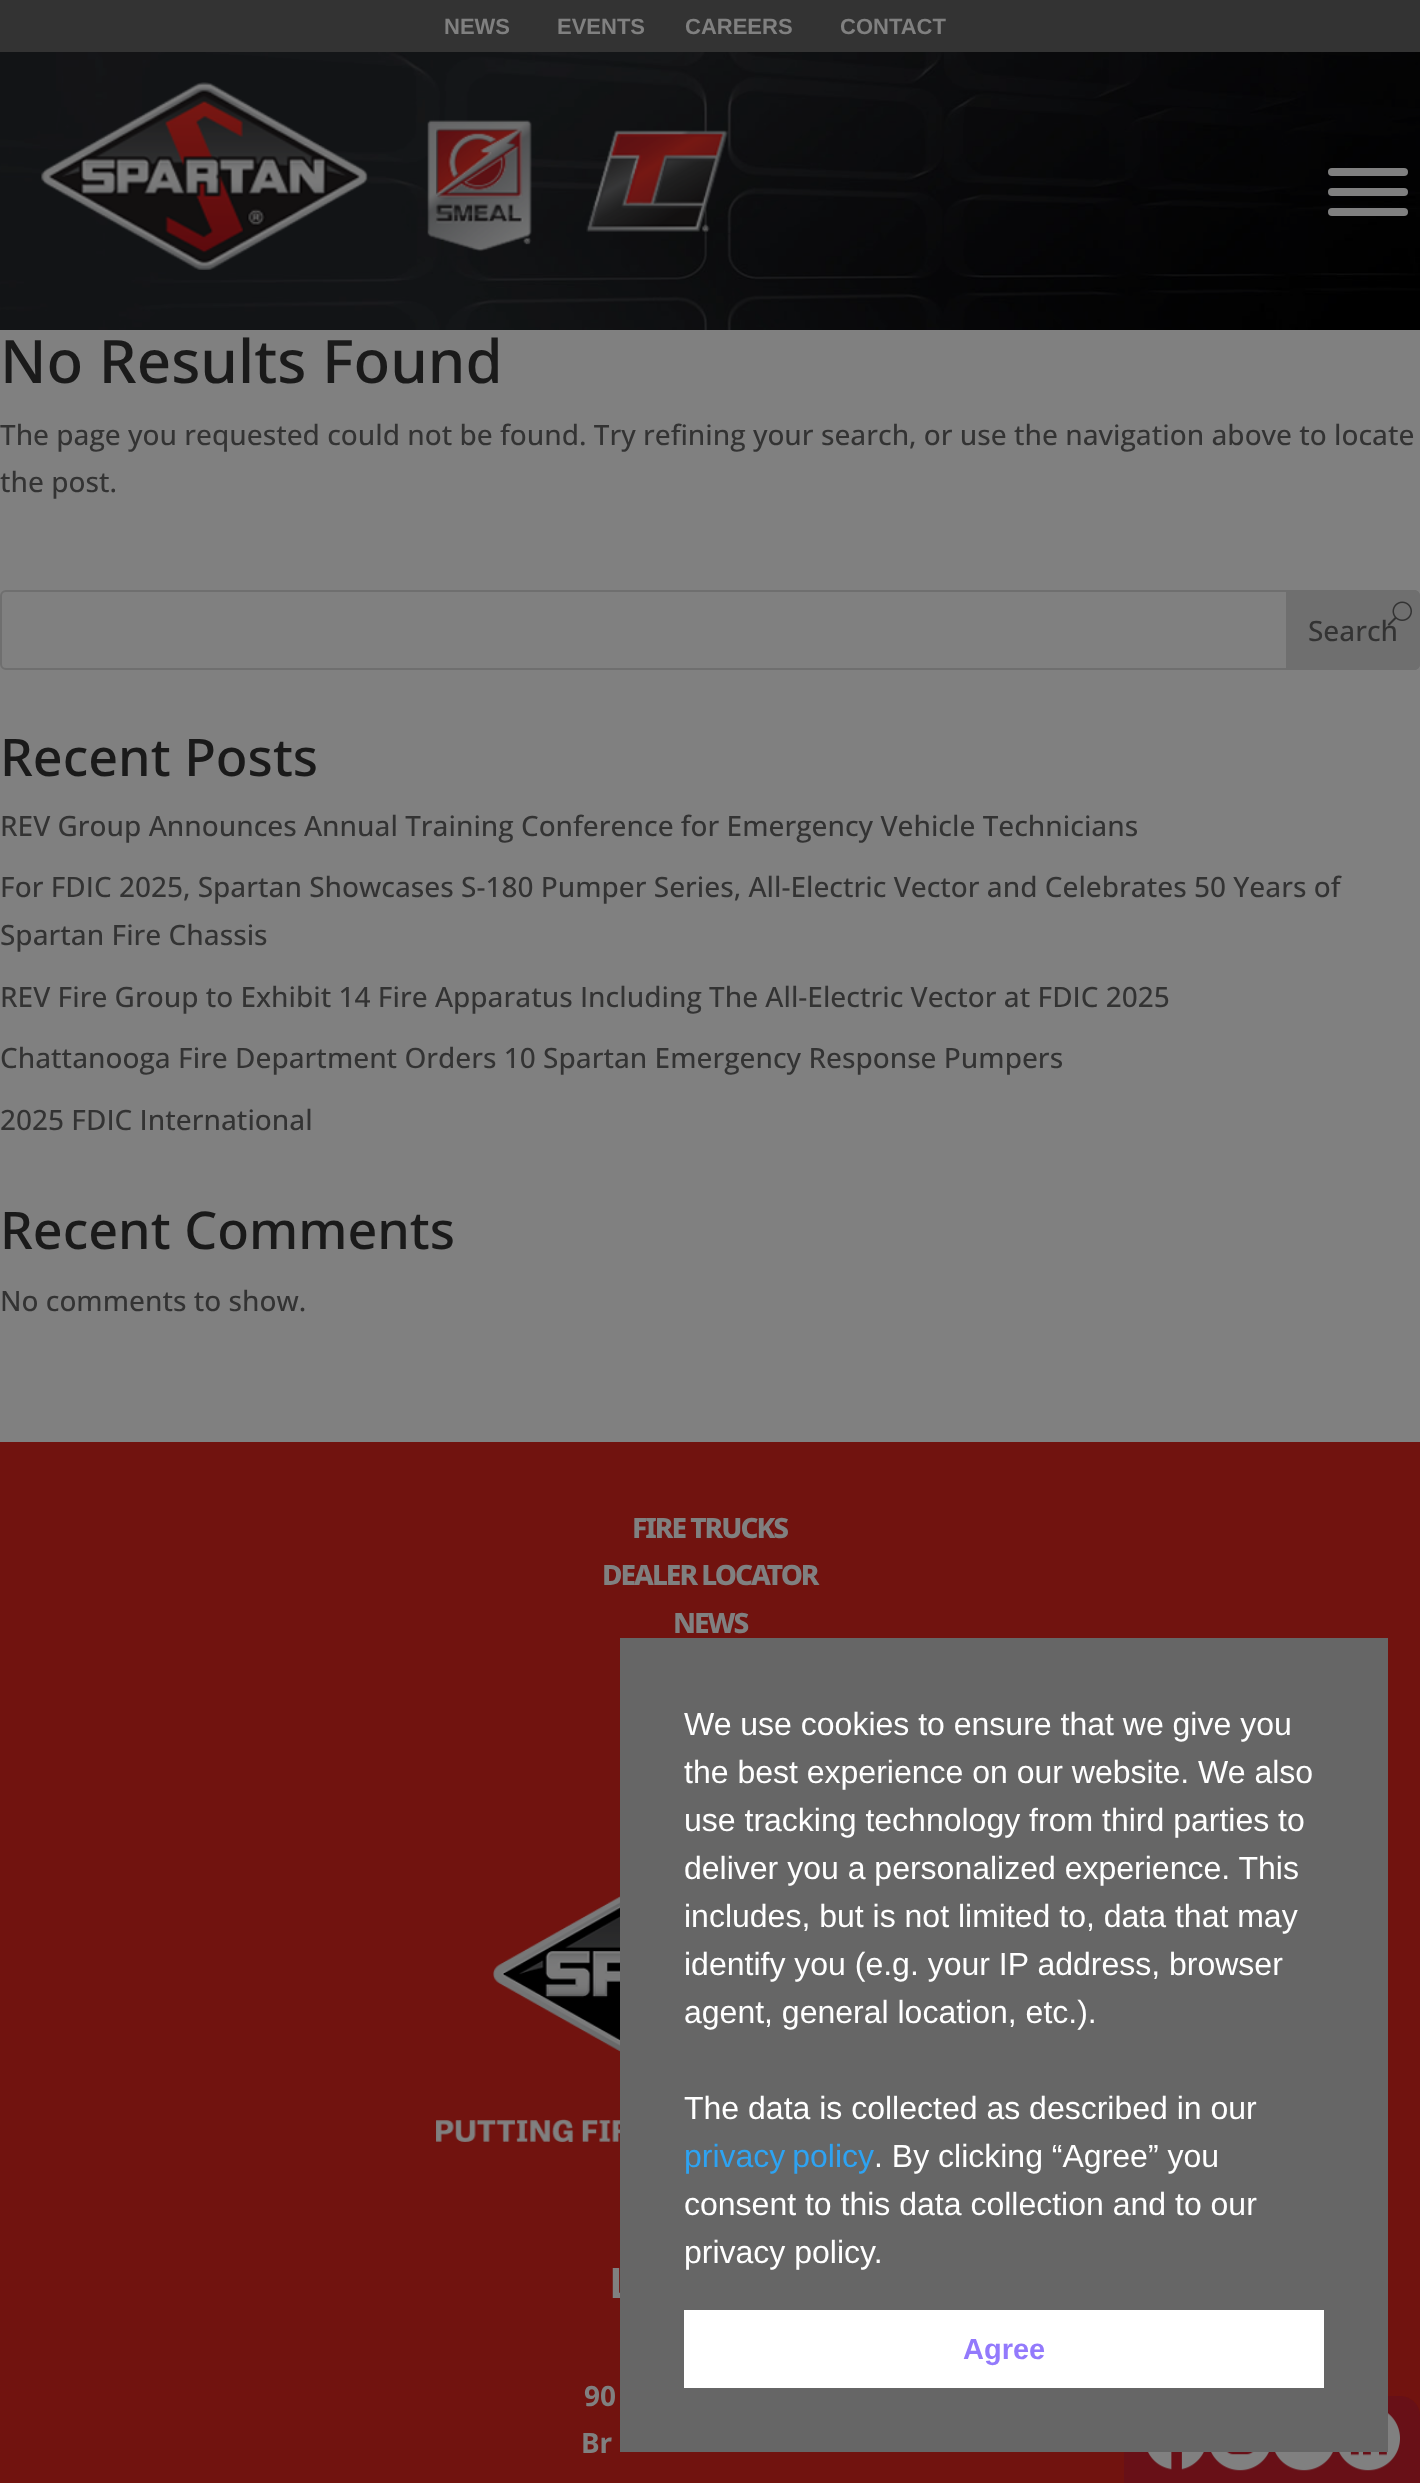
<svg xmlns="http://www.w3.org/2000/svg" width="1420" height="2483">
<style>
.a{font:bold 22px Liberation Sans;fill:#808080}
.b{font:500 60px Noto Sans;fill:#1a1a1a}
.c{font:500 28px Open Sans;fill:#333}
.d{font:500 52px Noto Sans;fill:#1a1a1a}
.e{font:800 28px Noto Sans;letter-spacing:-2px;fill:#808080}
.f{font:bold 42px Open Sans;fill:#808080}
.g{font:bold 28px Noto Sans;fill:#808080}
.h{font:32px Liberation Sans;fill:#fff}
.i{font:32px Liberation Sans;fill:#2ea3f2}
.j{font:bold 29px Liberation Sans;fill:#937afc}
</style>
<rect width="100%" height="100%" fill="#808080"/>
<path fill="#333" d="M0 0h1420v52H0z"/>
<path fill="#71130f" d="M0 1442h1420v1041H0z"/>
<path fill="#681017" d="M1144 2396h256c11 0 20 9 20 20v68h-296v-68c0-11 9-20 20-20z"/>
<image href="1.png" x="1147" y="2452" width="57" height="18"/>
<image href="2.png" x="1211" y="2452" width="58" height="19"/>
<image href="3.png" x="1275" y="2452" width="58" height="19"/>
<image href="4.png" x="1339" y="2413" width="61" height="58"/>
<image href="5.png" x="0" y="52" width="1420" height="278"/>
<image href="6.png" x="41" y="82" width="688" height="188"/>
<rect fill="#808080" x="1328" y="168" width="80" height="8" rx="4"/>
<rect fill="#808080" x="1328" y="188" width="80" height="8" rx="4"/>
<rect fill="#808080" x="1328" y="208" width="80" height="8" rx="4"/>
<rect fill="none" stroke="#6f6f6f" stroke-width="2" x="1" y="591" width="1418" height="78" rx="5"/>
<path fill="#6f6f6f" d="M1286 590h128c3.5 0 6 2.5 6 6v68c0 3.5-2.5 6-6 6h-128z"/>
<image href="8.png" x="436" y="1896" width="184" height="246"/>
<text class="a" x="444" y="34">NEWS</text>
<text class="a" x="557" y="34">EVENTS</text>
<text class="a" x="685" y="34">CAREERS</text>
<text class="a" x="840" y="34">CONTACT</text>
<text class="b" x="0" y="383">No Results Found</text>
<text class="c" x="0" y="445">The page you requested could not be found. Try refining your search, or use the navigation above to locate</text>
<text class="c" x="0" y="492">the post.</text>
<text class="c" x="1308" y="641">Search</text>
<image href="7.png" x="1387" y="601" width="25" height="25"/>
<text class="d" x="0" y="776">Recent Posts</text>
<text class="c" x="0" y="836">REV Group Announces Annual Training Conference for Emergency Vehicle Technicians</text>
<text class="c" x="0" y="897">For FDIC 2025, Spartan Showcases S-180 Pumper Series, All-Electric Vector and Celebrates 50 Years of</text>
<text class="c" x="0" y="945">Spartan Fire Chassis</text>
<text class="c" x="0" y="1007">REV Fire Group to Exhibit 14 Fire Apparatus Including The All-Electric Vector at FDIC 2025</text>
<text class="c" x="0" y="1068">Chattanooga Fire Department Orders 10 Spartan Emergency Response Pumpers</text>
<text class="c" x="0" y="1130">2025 FDIC International</text>
<text class="d" x="0" y="1249">Recent Comments</text>
<text class="c" x="0" y="1311">No comments to show.</text>
<text class="e" x="632" y="1538">FIRE TRUCKS</text>
<text class="e" x="602" y="1585">DEALER LOCATOR</text>
<text class="e" x="673" y="1633">NEWS</text>
<text class="f" x="609" y="2298">L</text>
<text class="g" x="584" y="2406">90</text>
<text class="g" x="581" y="2453">Br</text>
<path fill="#666" d="M620 1638h768v814H620z"/>
<text class="h" x="684" y="1735">We use cookies to ensure that we give you</text>
<text class="h" x="684" y="1783">the best experience on our website. We also</text>
<text class="h" x="684" y="1831">use tracking technology from third parties to</text>
<text class="h" x="684" y="1879">deliver you a personalized experience. This</text>
<text class="h" x="684" y="1927">includes, but is not limited to, data that may</text>
<text class="h" x="684" y="1975">identify you (e.g. your IP address, browser</text>
<text class="h" x="684" y="2023">agent, general location, etc.).</text>
<text class="h" x="684" y="2119">The data is collected as described in our</text>
<text class="i" x="684" y="2167" word-spacing="-2">privacy policy</text>
<text class="h" x="874" y="2167">. By clicking “Agree” you</text>
<text class="h" x="684" y="2215">consent to this data collection and to our</text>
<text class="h" x="684" y="2263">privacy policy.</text>
<path fill="#fff" d="M684 2310h640v78H684z"/>
<text class="j" x="963" y="2359">Agree</text>
</svg>
